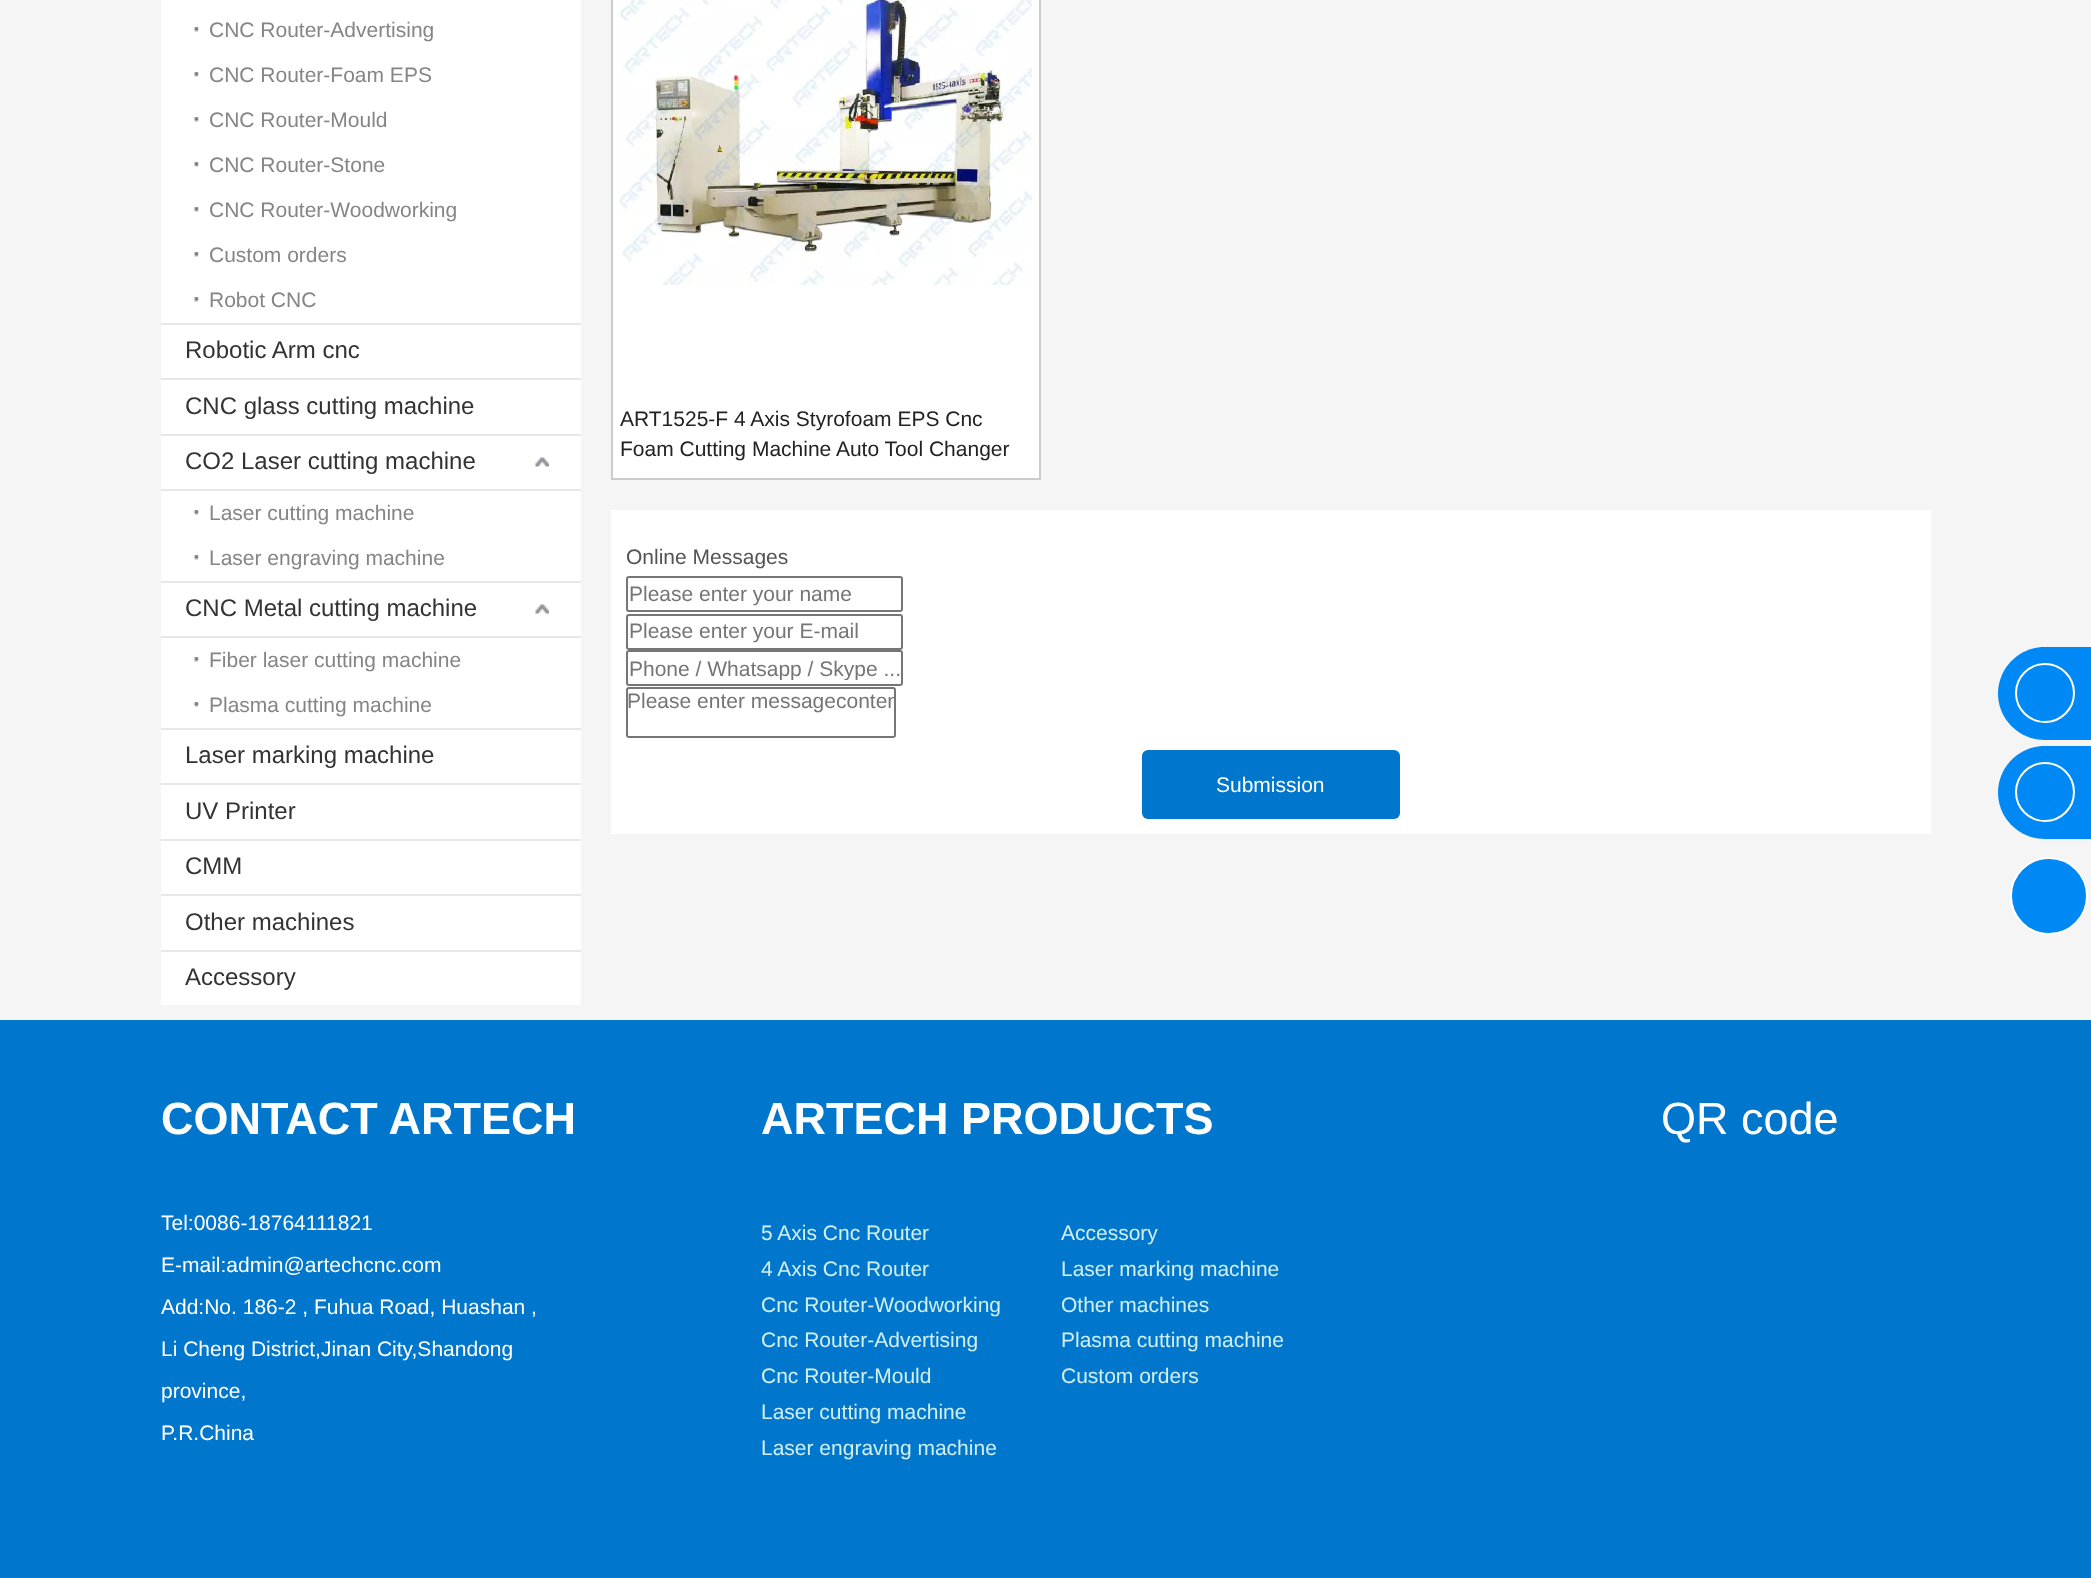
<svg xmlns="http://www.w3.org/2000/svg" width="2091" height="1578">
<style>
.a{font:21px Liberation Sans;fill:#868585}
.b{font:24px Liberation Sans;fill:#333}
.c{font:21px Liberation Sans;fill:#222}
.d{font:21px Liberation Sans;fill:#545454}
.e{font:21px Liberation Sans;fill:#757575}
.f{font:21px Liberation Sans;fill:#fff}
.g{font:bold 45px Liberation Sans;fill:#fff}
.h{font:21px Liberation Sans;fill:#d0efee}
.i{font:45px Liberation Sans;fill:#fff}
</style>
<defs>
<clipPath id="clip1"><path d="M629 656h271v24H629z"/></clipPath>
<clipPath id="clip2"><path d="M627 689h267v48H627z"/></clipPath>
</defs>
<rect width="100%" height="100%" fill="#f5f5f5"/>
<path fill="#fff" d="M161 0h420v1005H161z"/>
<image href="1.png" x="193" y="27" width="6" height="5"/>
<image href="1.png" x="193" y="72" width="6" height="5"/>
<image href="1.png" x="193" y="117" width="6" height="5"/>
<image href="1.png" x="193" y="162" width="6" height="5"/>
<image href="1.png" x="193" y="207" width="6" height="5"/>
<image href="1.png" x="193" y="252" width="6" height="5"/>
<image href="1.png" x="193" y="297" width="6" height="5"/>
<path fill="#e7e7e7" d="M161 323h420v2H161z"/>
<path fill="#e7e7e7" d="M161 378h420v2H161z"/>
<path fill="#e7e7e7" d="M161 434h420v2H161z"/>
<path fill="#e7e7e7" d="M161 489h420v2H161z"/>
<image href="2.png" x="535" y="457" width="14" height="10"/>
<image href="1.png" x="193" y="510" width="6" height="5"/>
<image href="1.png" x="193" y="555" width="6" height="5"/>
<path fill="#e7e7e7" d="M161 581h420v2H161z"/>
<path fill="#e7e7e7" d="M161 636h420v2H161z"/>
<image href="2.png" x="535" y="604" width="14" height="10"/>
<image href="1.png" x="193" y="657" width="6" height="5"/>
<image href="1.png" x="193" y="702" width="6" height="5"/>
<path fill="#e7e7e7" d="M161 728h420v2H161z"/>
<path fill="#e7e7e7" d="M161 783h420v2H161z"/>
<path fill="#e7e7e7" d="M161 839h420v2H161z"/>
<path fill="#e7e7e7" d="M161 894h420v2H161z"/>
<path fill="#e7e7e7" d="M161 950h420v2H161z"/>
<path fill="#fff" stroke="#ccc" stroke-width="2" d="M612 -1h428v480H612z"/>
<image href="3.png" x="619" y="0" width="413" height="285"/>
<path fill="#fff" d="M611 510h1320v324H611z"/>
<rect fill="none" stroke="#767676" stroke-width="2" x="627" y="577" width="275" height="34" rx="2"/>
<rect fill="none" stroke="#767676" stroke-width="2" x="627" y="615" width="275" height="34" rx="2"/>
<rect fill="none" stroke="#767676" stroke-width="2" x="627" y="651" width="275" height="34" rx="2"/>
<rect fill="none" stroke="#767676" stroke-width="2" x="627" y="688" width="268" height="49" rx="2"/>
<rect fill="#07c" x="1142" y="750" width="258" height="69" rx="6"/>
<path fill="#0089f5" d="M2044.5 647h46.5v93h-46.5c-25.5 0-46.5-21-46.5-46.5c0-25.5 21-46.5 46.5-46.5z"/>
<circle fill="none" stroke="#fff" stroke-width="2" cx="2045" cy="693" r="29"/>
<path fill="#0089f5" d="M2044.5 746h46.5v93h-46.5c-25.5 0-46.5-21-46.5-46.5c0-25.5 21-46.5 46.5-46.5z"/>
<circle fill="none" stroke="#fff" stroke-width="2" cx="2045" cy="792" r="29"/>
<circle fill="#0089f5" stroke="#fff" stroke-width="2" cx="2049" cy="896" r="38"/>
<path fill="#07c" d="M0 1020h2091v558H0z"/>
<text class="a" x="209" y="37">CNC Router-Advertising</text>
<text class="a" x="209" y="82">CNC Router-Foam EPS</text>
<text class="a" x="209" y="127">CNC Router-Mould</text>
<text class="a" x="209" y="172">CNC Router-Stone</text>
<text class="a" x="209" y="217">CNC Router-Woodworking</text>
<text class="a" x="209" y="262">Custom orders</text>
<text class="a" x="209" y="307">Robot CNC</text>
<text class="b" x="185" y="358">Robotic Arm cnc</text>
<text class="b" x="185" y="414">CNC glass cutting machine</text>
<text class="b" x="185" y="469">CO2 Laser cutting machine</text>
<text class="a" x="209" y="520">Laser cutting machine</text>
<text class="a" x="209" y="565">Laser engraving machine</text>
<text class="b" x="185" y="616">CNC Metal cutting machine</text>
<text class="a" x="209" y="667">Fiber laser cutting machine</text>
<text class="a" x="209" y="712">Plasma cutting machine</text>
<text class="b" x="185" y="763">Laser marking machine</text>
<text class="b" x="185" y="819">UV Printer</text>
<text class="b" x="185" y="874">CMM</text>
<text class="b" x="185" y="930">Other machines</text>
<text class="b" x="185" y="985">Accessory</text>
<text class="c" x="620" y="426">ART1525-F 4 Axis Styrofoam EPS Cnc</text>
<text class="c" x="620" y="456">Foam Cutting Machine Auto Tool Changer</text>
<text class="d" x="626" y="564">Online Messages</text>
<text class="e" x="629" y="601">Please enter your name</text>
<text class="e" x="629" y="638">Please enter your E-mail</text>
<g clip-path="url(#clip1)">
<text class="e" x="629" y="676">Phone / Whatsapp / Skype ...</text>
</g>
<text class="e" x="627" y="708">Please enter message</text>
<g clip-path="url(#clip2)">
<text class="e" x="836" y="708">conten</text>
</g>
<text class="f" x="1216" y="792">Submission</text>
<text class="g" x="161" y="1134">CONTACT ARTECH</text>
<text class="f" x="161" y="1230">Tel:0086-18764111821</text>
<text class="f" x="161" y="1272">E-mail:admin@artechcnc.com</text>
<text class="f" x="161" y="1314">Add:No. 186-2 , Fuhua Road, Huashan ,</text>
<text class="f" x="161" y="1356">Li Cheng District,Jinan City,Shandong</text>
<text class="f" x="161" y="1398">province,</text>
<text class="f" x="161" y="1440">P.R.China</text>
<text class="g" x="761" y="1134">ARTECH PRODUCTS</text>
<text class="h" x="761" y="1240">5 Axis Cnc Router</text>
<text class="h" x="761" y="1276">4 Axis Cnc Router</text>
<text class="h" x="761" y="1312">Cnc Router-Woodworking</text>
<text class="h" x="761" y="1347">Cnc Router-Advertising</text>
<text class="h" x="761" y="1383">Cnc Router-Mould</text>
<text class="h" x="761" y="1419">Laser cutting machine</text>
<text class="h" x="761" y="1455">Laser engraving machine</text>
<text class="h" x="1061" y="1240">Accessory</text>
<text class="h" x="1061" y="1276">Laser marking machine</text>
<text class="h" x="1061" y="1312">Other machines</text>
<text class="h" x="1061" y="1347">Plasma cutting machine</text>
<text class="h" x="1061" y="1383">Custom orders</text>
<text class="i" x="1661" y="1134">QR code</text>
</svg>
